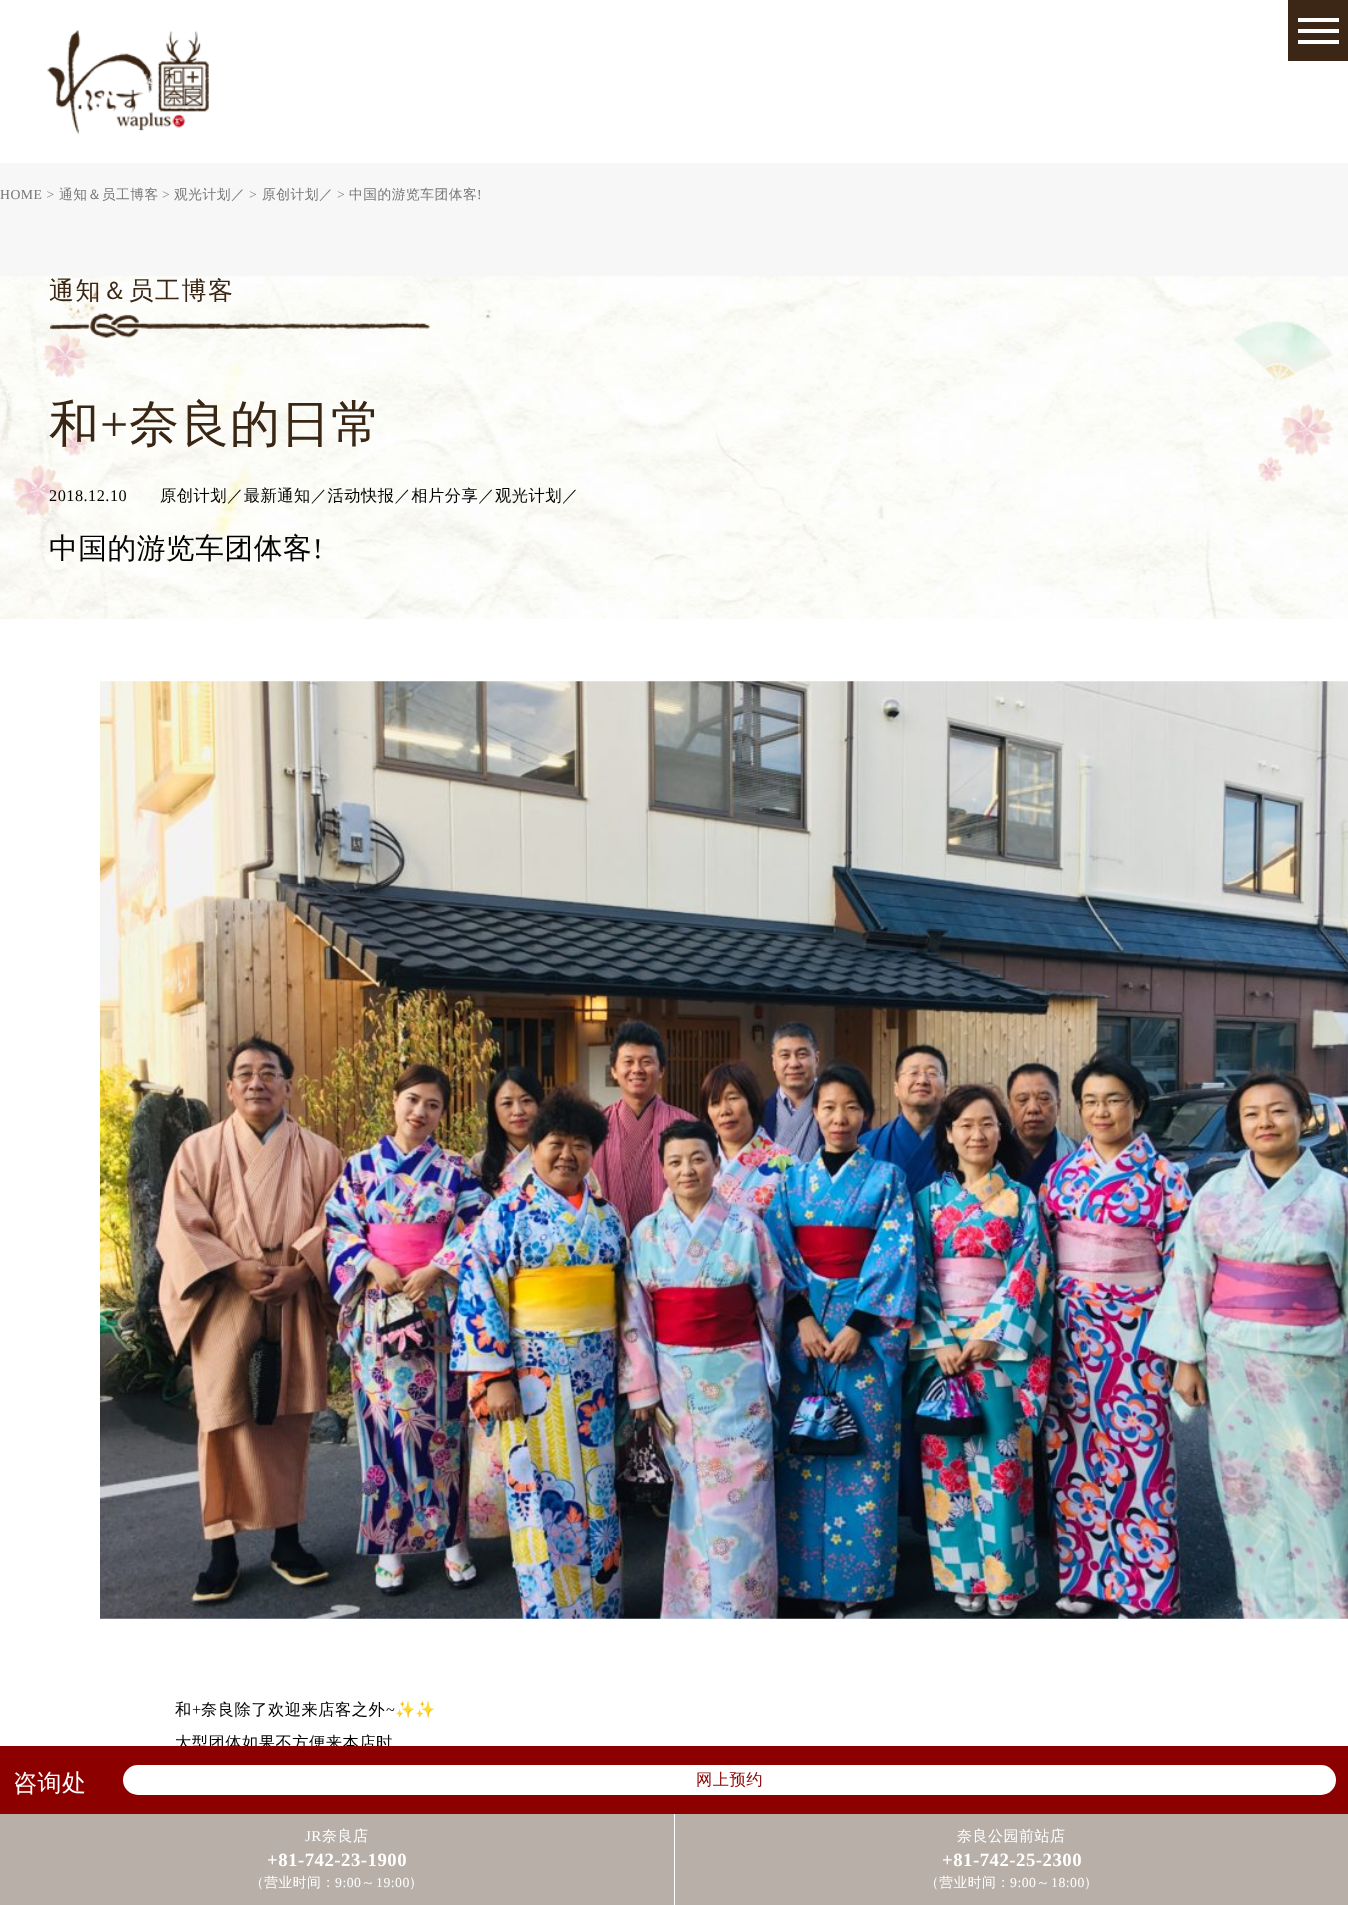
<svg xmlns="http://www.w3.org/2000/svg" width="1348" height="1905">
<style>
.a{font:13.75px Liberation Serif;letter-spacing:0.5px;fill:#777}
.b{font:500 13.75px WenQuanYi Zen Hei;letter-spacing:0.5px;fill:#777}
.c{font:500 25px WenQuanYi Zen Hei;letter-spacing:1.5px;fill:#3a2614}
.d{font:500 50px WenQuanYi Zen Hei;letter-spacing:0.5px;fill:#3a2614}
.e{font:50px Liberation Serif;letter-spacing:0.5px;fill:#3a2614}
.f{font:16.25px Liberation Serif;letter-spacing:0.5px;fill:#000}
.g{font:500 16.25px WenQuanYi Zen Hei;letter-spacing:0.5px;fill:#000}
.h{font:500 28.75px WenQuanYi Zen Hei;letter-spacing:0.5px;fill:#000}
.i{font:28.75px Liberation Serif;letter-spacing:0.5px;fill:#000}
.j{font:16.25px Noto Color Emoji;letter-spacing:0.5px;fill:#000}
.k{font:500 24px WenQuanYi Zen Hei;letter-spacing:0.5px;fill:#fff}
.l{font:500 16.25px WenQuanYi Zen Hei;letter-spacing:0.5px;fill:#8c0000}
.m{font:15px Liberation Serif;letter-spacing:0.5px;fill:#fff}
.n{font:500 15px WenQuanYi Zen Hei;letter-spacing:0.5px;fill:#fff}
.o{font:bold 18.75px Liberation Serif;letter-spacing:0.5px;fill:#fff}
.p{font:500 13.75px WenQuanYi Zen Hei;letter-spacing:0.5px;fill:#fff}
.q{font:13.75px Liberation Serif;letter-spacing:0.5px;fill:#fff}
</style>
<rect width="100%" height="100%" fill="#f7f7f7"/>
<image href="1.png" x="0" y="276" width="1348" height="343"/>
<image href="2.png" x="50" y="313" width="380" height="25"/>
<path fill="#fff" d="M0 619h1348v1127H0z"/>
<image href="3.png" x="100" y="681" width="1248" height="938"/>
<path fill="#fff" d="M0 0h1348v163H0z"/>
<image href="4.png" x="47" y="30" width="162" height="104"/>
<path fill="#3c2716" d="M1288 0h60v61H1288z"/>
<path fill="#fff" d="M1298 18h41v4H1298z"/>
<path fill="#fff" d="M1298 29h41v4H1298z"/>
<path fill="#fff" d="M1298 40h41v4H1298z"/>
<path fill="#b7afa8" d="M0 1814h1348v91H0z"/>
<path fill="#fff" d="M674 1814h1v91H674z"/>
<text class="a" x="0" y="199">HOME &gt;</text>
<text class="b" x="59" y="199">通知＆员工博客</text>
<text class="a" x="162" y="199">&gt;</text>
<text class="b" x="174" y="199">观光计划／</text>
<text class="a" x="249" y="199">&gt;</text>
<text class="b" x="262" y="199">原创计划／</text>
<text class="a" x="337" y="199">&gt;</text>
<text class="b" x="349" y="199">中国的游览车团体客</text>
<text class="a" x="477" y="199">!</text>
<text class="c" x="49" y="299">通知＆员工博客</text>
<text class="d" x="49" y="441">和</text>
<text class="e" x="100" y="441">+</text>
<text class="d" x="129" y="441">奈良的日常</text>
<text class="f" x="49" y="501">2018.12.10</text>
<text class="g" x="160" y="501">原创计划／最新通知／活动快报／相片分享／观光计划／</text>
<text class="h" x="49" y="558">中国的游览车团体客</text>
<text class="i" x="313" y="558">!</text>
<text class="g" x="175" y="1715">和</text>
<text class="f" x="192" y="1715">+</text>
<text class="g" x="201" y="1715">奈良除了欢迎来店客之外</text>
<text class="f" x="386" y="1715">~</text>
<text class="j" x="395" y="1715">✨✨</text>
<text class="g" x="175" y="1748">大型团体如果不方便来本店时</text>
<path fill="#8c0000" d="M0 1746h1348v68H0z"/>
<text class="k" x="13" y="1791">咨询处</text>
<rect fill="#fff" x="123" y="1765" width="1213" height="30" rx="15"/>
<text class="l" x="696" y="1785">网上预约</text>
<text class="m" x="305" y="1841">JR</text>
<text class="n" x="322" y="1841">奈良店</text>
<text class="o" x="267" y="1866">+81-742-23-1900</text>
<text class="p" x="250" y="1887">（营业时间：</text>
<text class="q" x="335" y="1887">9:00</text>
<text class="p" x="361" y="1887">～</text>
<text class="q" x="376" y="1887">19:00</text>
<text class="p" x="409" y="1887">）</text>
<text class="n" x="957" y="1841">奈良公园前站店</text>
<text class="o" x="942" y="1866">+81-742-25-2300</text>
<text class="p" x="925" y="1887">（营业时间：</text>
<text class="q" x="1010" y="1887">9:00</text>
<text class="p" x="1036" y="1887">～</text>
<text class="q" x="1051" y="1887">18:00</text>
<text class="p" x="1084" y="1887">）</text>
</svg>
